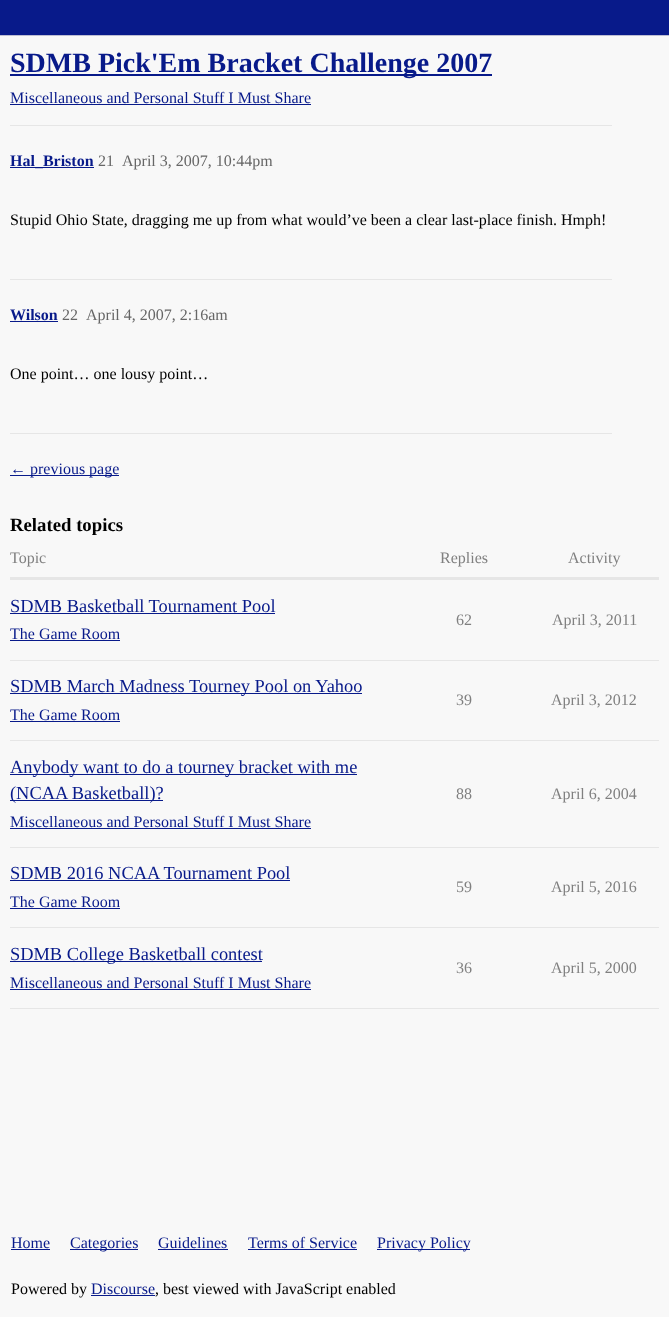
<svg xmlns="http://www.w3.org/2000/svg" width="669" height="1317">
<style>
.a{font:bold 28px Liberation Serif;fill:#081a8a}
.b{font:16px Liberation Serif;fill:#081a8a}
.c{font:bold 16px Liberation Serif;fill:#081a8a}
.d{font:16px Liberation Serif;fill:#666}
.e{font:16px Liberation Serif;fill:#000}
.f{font:bold 18.75px Liberation Serif;fill:#000}
.g{font:16px Liberation Serif;fill:#808080}
.h{font:18.4px Liberation Serif;fill:#081a8a}
</style>
<rect width="100%" height="100%" fill="#f8f8f8"/>
<path fill="#081a8a" d="M0 0h669v35H0z"/>
<path fill="#bdbed3" d="M0 35h669v1H0z"/>
<path fill="#081a8a" d="M10 74h482v2H10z"/>
<path fill="#081a8a" d="M10 104h301v1H10z"/>
<path fill="#e6e6e6" d="M10 125h602v1H10z"/>
<path fill="#081a8a" d="M10 167h84v1H10z"/>
<path fill="#e6e6e6" d="M10 279h602v1H10z"/>
<path fill="#081a8a" d="M10 321h48v1H10z"/>
<path fill="#e6e6e6" d="M10 433h602v1H10z"/>
<path fill="#081a8a" d="M10 475h109v1H10z"/>
<path fill="#e6e6e6" d="M10 577h649v3H10z"/>
<path fill="#e6e6e6" d="M10 660h649v1H10z"/>
<path fill="#081a8a" d="M10 613h265v1H10z"/>
<path fill="#081a8a" d="M10 640h110v1H10z"/>
<path fill="#e6e6e6" d="M10 740h649v1H10z"/>
<path fill="#081a8a" d="M10 693h352v1H10z"/>
<path fill="#081a8a" d="M10 721h110v1H10z"/>
<path fill="#e6e6e6" d="M10 847h649v1H10z"/>
<path fill="#081a8a" d="M10 774h347v1H10z"/>
<path fill="#081a8a" d="M10 800h153v1H10z"/>
<path fill="#081a8a" d="M10 828h301v1H10z"/>
<path fill="#e6e6e6" d="M10 927h649v1H10z"/>
<path fill="#081a8a" d="M10 880h280v1H10z"/>
<path fill="#081a8a" d="M10 908h110v1H10z"/>
<path fill="#e6e6e6" d="M10 1008h649v1H10z"/>
<path fill="#081a8a" d="M10 961h252v1H10z"/>
<path fill="#081a8a" d="M10 989h301v1H10z"/>
<path fill="#081a8a" d="M11 1249h39v1H11z"/>
<path fill="#081a8a" d="M70 1249h68v1H70z"/>
<path fill="#081a8a" d="M158 1249h70v1H158z"/>
<path fill="#081a8a" d="M248 1249h109v1H248z"/>
<path fill="#081a8a" d="M377 1249h93v1H377z"/>
<path fill="#081a8a" d="M91 1295h64v1H91z"/>
<text class="a" x="10" y="72">SDMB Pick'Em Bracket Challenge 2007</text>
<text class="b" x="10" y="103">Miscellaneous and Personal Stuff I Must Share</text>
<text class="c" x="10" y="166">Hal_Briston</text>
<text class="d" x="98" y="166">21</text>
<text class="d" x="122" y="166">April 3, 2007, 10:44pm</text>
<text class="e" x="10" y="225">Stupid Ohio State, dragging me up from what would’ve been a clear last-place finish. Hmph!</text>
<text class="c" x="10" y="320">Wilson</text>
<text class="d" x="62" y="320">22</text>
<text class="d" x="86" y="320">April 4, 2007, 2:16am</text>
<text class="e" x="10" y="379">One point… one lousy point…</text>
<text class="b" x="10" y="474">← previous page</text>
<text class="f" x="10" y="531">Related topics</text>
<text class="g" x="10" y="563">Topic</text>
<text class="g" x="440" y="563">Replies</text>
<text class="g" x="568" y="563">Activity</text>
<text class="h" x="10" y="612">SDMB Basketball Tournament Pool</text>
<text class="b" x="10" y="639">The Game Room</text>
<text class="g" x="456" y="625">62</text>
<text class="g" x="552" y="625">April 3, 2011</text>
<text class="h" x="10" y="692">SDMB March Madness Tourney Pool on Yahoo</text>
<text class="b" x="10" y="720">The Game Room</text>
<text class="g" x="456" y="705">39</text>
<text class="g" x="551" y="705">April 3, 2012</text>
<text class="h" x="10" y="773">Anybody want to do a tourney bracket with me</text>
<text class="h" x="10" y="799">(NCAA Basketball)?</text>
<text class="b" x="10" y="827">Miscellaneous and Personal Stuff I Must Share</text>
<text class="g" x="456" y="799">88</text>
<text class="g" x="551" y="799">April 6, 2004</text>
<text class="h" x="10" y="879">SDMB 2016 NCAA Tournament Pool</text>
<text class="b" x="10" y="907">The Game Room</text>
<text class="g" x="456" y="892">59</text>
<text class="g" x="551" y="892">April 5, 2016</text>
<text class="h" x="10" y="960">SDMB College Basketball contest</text>
<text class="b" x="10" y="988">Miscellaneous and Personal Stuff I Must Share</text>
<text class="g" x="456" y="973">36</text>
<text class="g" x="551" y="973">April 5, 2000</text>
<text class="b" x="11" y="1248">Home</text>
<text class="b" x="70" y="1248">Categories</text>
<text class="b" x="158" y="1248">Guidelines</text>
<text class="b" x="248" y="1248">Terms of Service</text>
<text class="b" x="377" y="1248">Privacy Policy</text>
<text class="e" x="11" y="1294">Powered by</text>
<text class="b" x="91" y="1294">Discourse</text>
<text class="e" x="155" y="1294">, best viewed with JavaScript enabled</text>
</svg>
